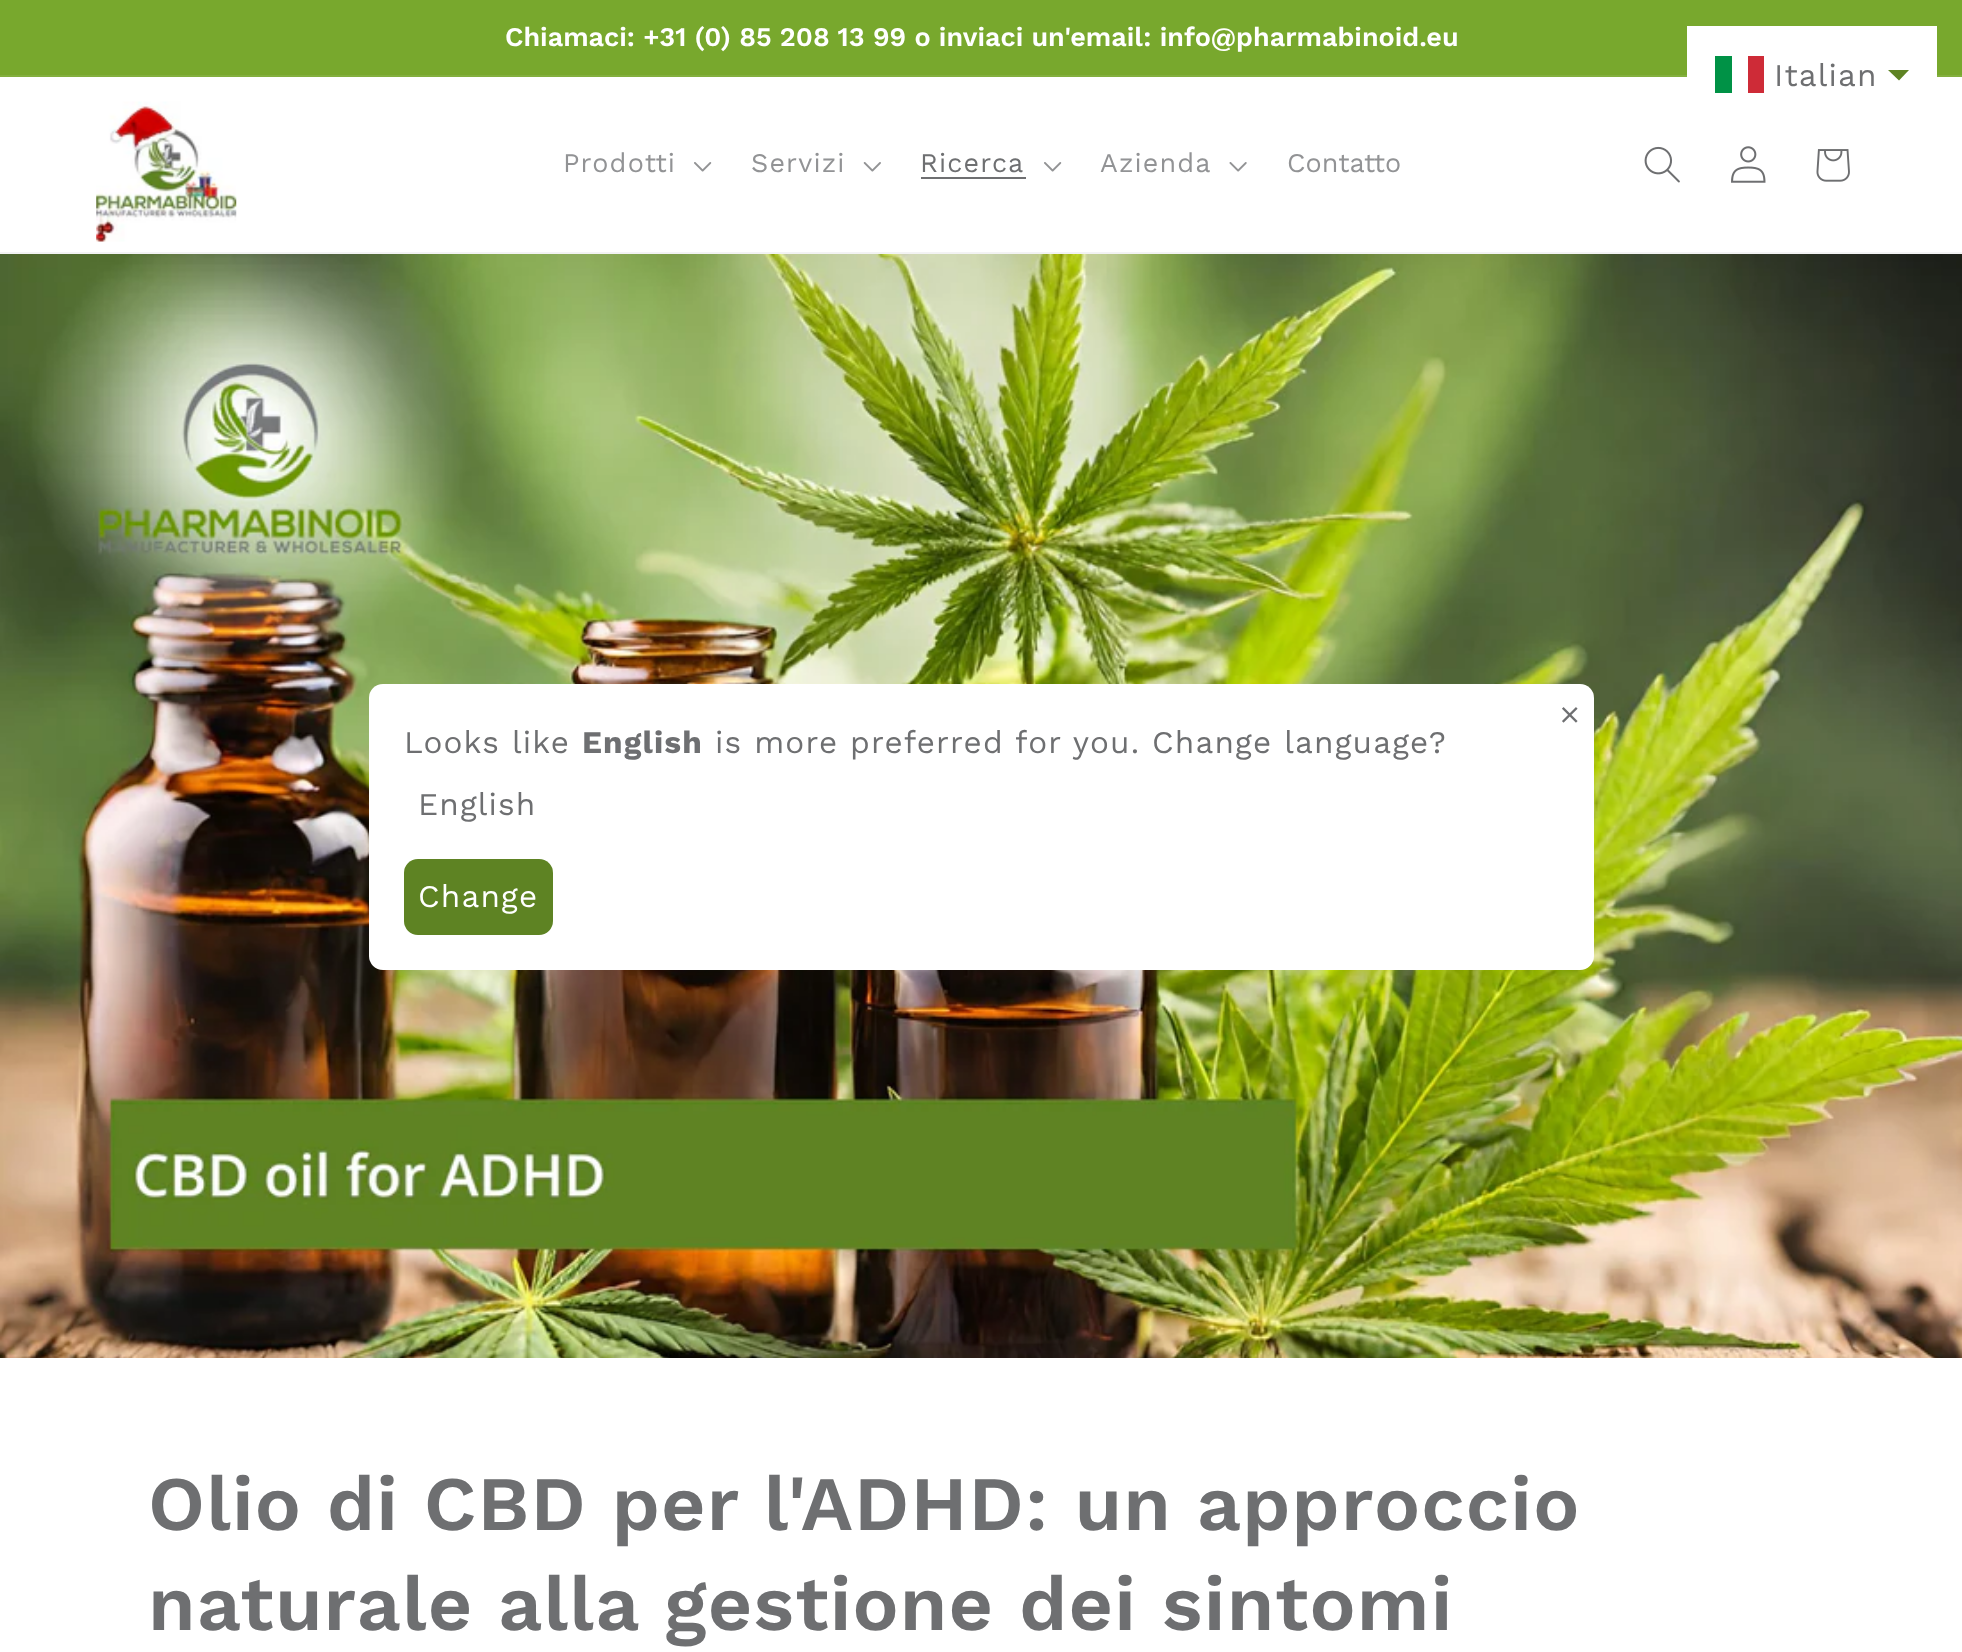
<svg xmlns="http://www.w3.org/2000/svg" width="1962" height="1652">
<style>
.a{font:600 26.95px Work Sans;fill:#fff}
.b{font:31.5px Work Sans;letter-spacing:1.15px;fill:#6e6f71}
.c{font:26.95px Work Sans;letter-spacing:1.15px;fill:#929395}
.d{font:26.95px Work Sans;letter-spacing:1.15px;fill:#6e6f71}
.e{font:26.95px Work Sans;fill:#929395}
.f{font:bold 31.5px Work Sans;letter-spacing:1.15px;fill:#6e6f71}
.g{font:31.5px Work Sans;letter-spacing:1.15px;fill:#fff}
.h{font:600 77px Work Sans;letter-spacing:1.15px;fill:#6e6f71}
</style>
<rect width="100%" height="100%" fill="#fff"/>
<path fill="#78a82d" d="M0 0h1962v75H0z"/>
<path fill="#83af3e" d="M0 75h1962v2H0z"/>
<path fill="#fff" d="M1687 26h250v51H1687z"/>
<path fill="#009246" d="M1715 56h17v37H1715z"/>
<path fill="#ce2b37" d="M1748 56h16v37H1748z"/>
<path fill="#5e8323" d="M1888 70h21l-10 10.5z"/>
<path fill="#f3f3f4" d="M0 252h1962v2H0z"/>
<image href="1.png" x="96" y="101" width="141" height="141"/>
<image href="2.png" x="694" y="162" width="18" height="10"/>
<image href="3.png" x="863" y="162" width="18" height="10"/>
<path fill="#6e6f71" d="M921 177h105v2H921z"/>
<image href="2.png" x="1044" y="162" width="18" height="10"/>
<image href="4.png" x="1229" y="162" width="18" height="10"/>
<image href="5.png" x="1644" y="146" width="36" height="37"/>
<image href="6.png" x="1731" y="146" width="35" height="37"/>
<image href="7.png" x="1816" y="149" width="34" height="33"/>
<image href="9.png" x="0" y="254" width="1962" height="1104"/>
<rect fill="#fff" x="369" y="684" width="1225" height="286" rx="14"/>
<image href="8.png" x="1562" y="707" width="16" height="16"/>
<rect fill="#5e8323" x="404" y="859" width="149" height="76" rx="14"/>
<text class="a" x="505" y="46">Chiamaci: +31 (0) 85 208 13 99 o inviaci un'email: info@pharmabinoid.eu</text>
<text class="b" x="1774" y="86">Italian</text>
<text class="c" x="563" y="172">Prodotti</text>
<text class="c" x="751" y="172">Servizi</text>
<text class="d" x="920" y="172">Ricerca</text>
<text class="c" x="1100" y="172">Azienda</text>
<text class="e" x="1287" y="172">Contatto</text>
<text class="b" x="404" y="753">Looks like</text>
<text class="f" x="582" y="753">English</text>
<text class="b" x="715" y="753">is more preferred for you. Change language?</text>
<text class="b" x="418" y="815">English</text>
<text class="g" x="418" y="907">Change</text>
<text class="h" x="148" y="1530">Olio di CBD per l'ADHD: un approccio</text>
<text class="h" x="148" y="1630">naturale alla gestione dei sintomi</text>
</svg>
